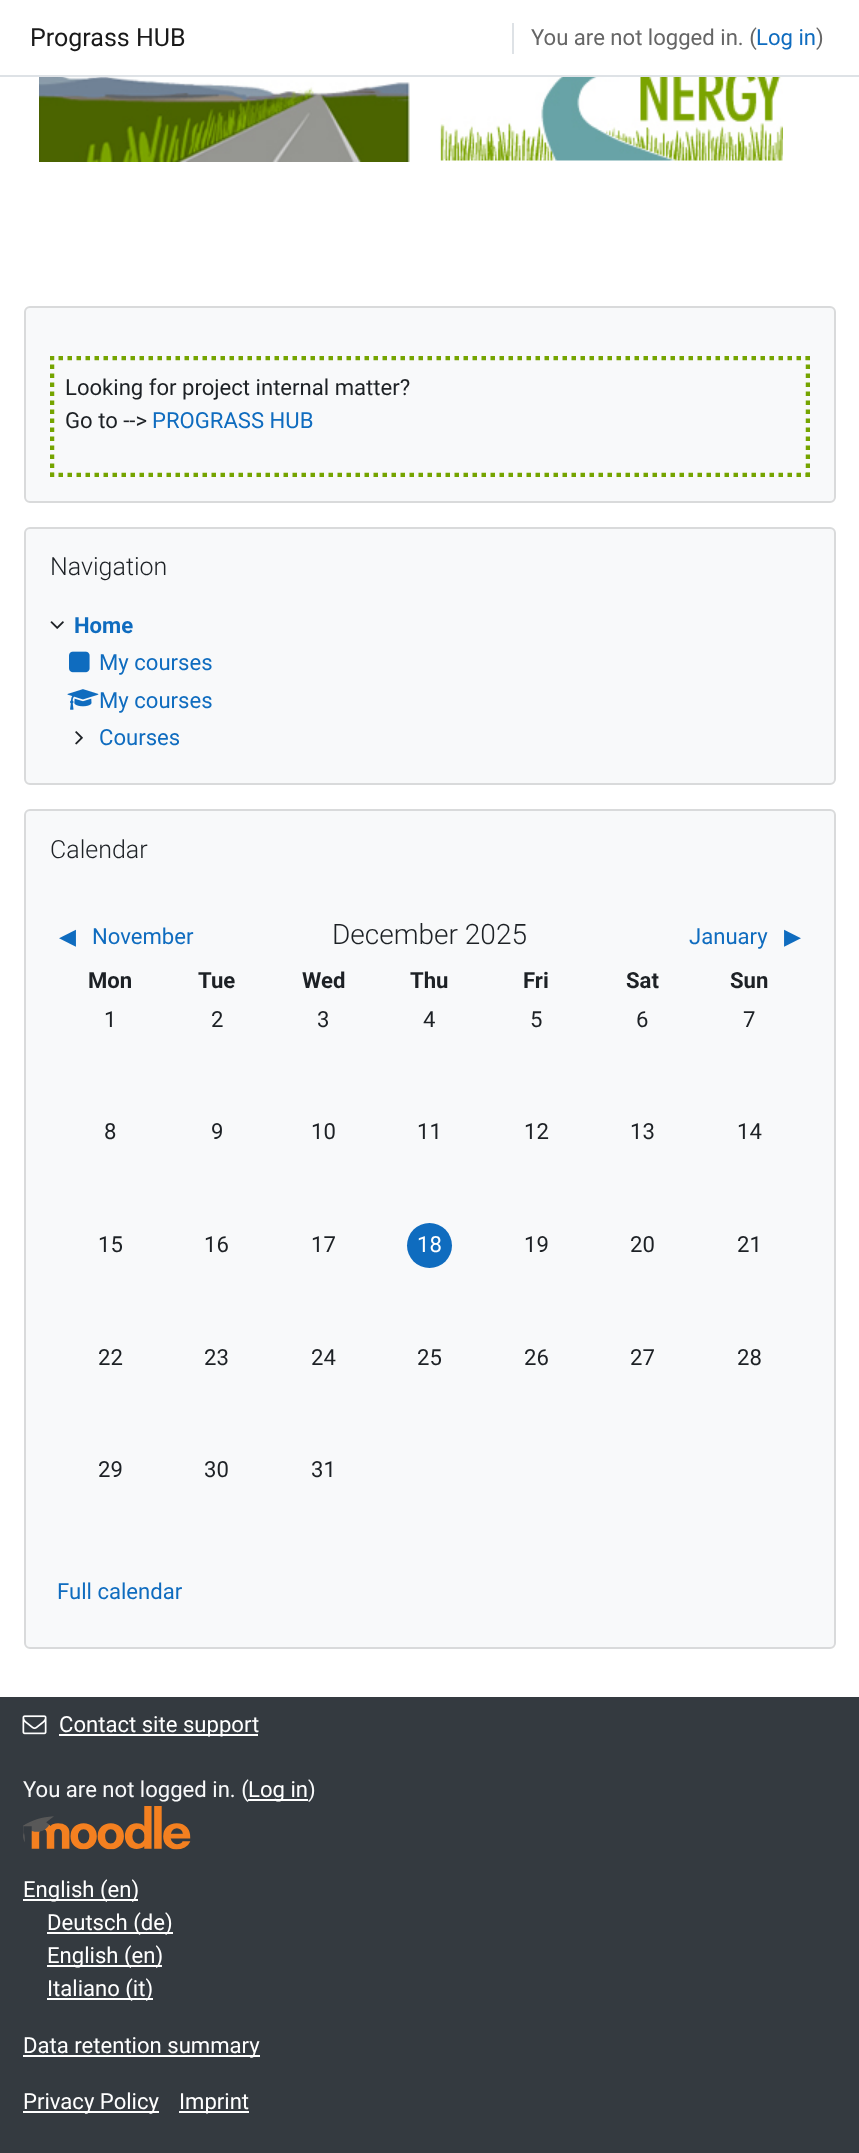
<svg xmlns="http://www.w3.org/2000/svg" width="859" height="2153">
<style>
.a{font:25px Roboto;fill:#1a1a1a}
.b{font:22.1px Roboto;fill:#666}
.c{font:22.1px Roboto;fill:#0f6cbf}
.d{font:22.1px Roboto;fill:#1d2125}
.e{font:300 25px Roboto;fill:#1d2125}
.f{font:bold 22.1px Roboto;fill:#0f6cbf}
.g{font:22.1px DejaVu Sans;fill:#0f6cbf}
.h{font:300 28px Roboto;fill:#1d2125}
.i{font:bold 22.1px Roboto;fill:#1d2125}
.j{font:22.1px Roboto;fill:#fff}
.k{font:22.1px Roboto;fill:#f8f9fa}
</style>
<defs>
<clipPath id="clip1"><path d="M50 356h760v121H50z"/></clipPath>
</defs>
<rect width="100%" height="100%" fill="#fff"/>
<path fill="#dee2e6" d="M0 75h859v2H0z"/>
<path fill="#dee2e6" d="M512 23h2v31H512z"/>
<image href="1.png" x="39" y="77" width="371" height="85"/>
<image href="2.png" x="439" y="77" width="344" height="84"/>
<rect fill="#f8f9fa" stroke="#d9dadb" stroke-width="2" x="25" y="307" width="810" height="195" rx="5"/>
<g clip-path="url(#clip1)">
<path fill="none" stroke="#75a400" stroke-width="4.5" stroke-dasharray="4.5 4.5" d="M49.5 358h760.5"/>
<path fill="none" stroke="#75a400" stroke-width="4.5" stroke-dasharray="4.5 4.5" d="M808 355.5v121.5"/>
<path fill="none" stroke="#75a400" stroke-width="4.5" stroke-dasharray="4.5 4.5" d="M49.5 475h760.5"/>
<path fill="none" stroke="#75a400" stroke-width="4.5" stroke-dasharray="4.5 4.5" d="M52 355.5v121.5"/>
</g>
<rect fill="#f8f9fa" stroke="#d9dadb" stroke-width="2" x="25" y="528" width="810" height="256" rx="5"/>
<image href="3.png" x="50" y="621" width="14" height="8"/>
<image href="4.png" x="69" y="651" width="21" height="22"/>
<image href="5.png" x="67" y="689" width="32" height="21"/>
<image href="6.png" x="75" y="731" width="8" height="14"/>
<rect fill="#f8f9fa" stroke="#d9dadb" stroke-width="2" x="25" y="810" width="810" height="838" rx="5"/>
<circle fill="#0f6cbf" cx="429.5" cy="1245.5" r="22.5"/>
<path fill="#343a40" d="M0 1697h859v456H0z"/>
<image href="7.png" x="22" y="1715" width="25" height="20"/>
<path fill="#fff" d="M59 1734h199v2H59z"/>
<path fill="#fff" d="M248 1799h60v2H248z"/>
<image href="8.png" x="23" y="1806" width="168" height="44"/>
<path fill="#fff" d="M23 1899h115v2H23z"/>
<path fill="#fff" d="M47 1932h126v2H47z"/>
<path fill="#fff" d="M47 1965h115v2H47z"/>
<path fill="#fff" d="M47 1998h106v2H47z"/>
<path fill="#fff" d="M23 2055h237v2H23z"/>
<path fill="#fff" d="M23 2111h136v2H23z"/>
<path fill="#fff" d="M179 2111h70v2H179z"/>
<text class="a" x="30" y="46">Prograss HUB</text>
<text class="b" x="531" y="45">You are not logged in. (</text>
<text class="c" x="756" y="45">Log in</text>
<text class="b" x="816" y="45">)</text>
<text class="d" x="65" y="395">Looking for project internal matter?</text>
<text class="d" x="65" y="428">Go to --&gt;</text>
<text class="c" x="152" y="428">PROGRASS HUB</text>
<text class="e" x="50" y="575">Navigation</text>
<text class="f" x="74" y="633">Home</text>
<text class="c" x="99" y="670">My courses</text>
<text class="c" x="99" y="708">My courses</text>
<text class="c" x="99" y="745">Courses</text>
<text class="e" x="50" y="858">Calendar</text>
<text class="g" x="59" y="944">◀︎</text>
<text class="c" x="92" y="944">November</text>
<text class="h" x="332" y="944">December 2025</text>
<text class="c" x="689" y="944">January</text>
<text class="g" x="784" y="944">▶︎</text>
<text class="i" x="88" y="988">Mon</text>
<text class="i" x="198" y="988">Tue</text>
<text class="i" x="302" y="988">Wed</text>
<text class="i" x="410" y="988">Thu</text>
<text class="i" x="523" y="988">Fri</text>
<text class="i" x="626" y="988">Sat</text>
<text class="i" x="730" y="988">Sun</text>
<text class="d" x="104" y="1027">1</text>
<text class="d" x="211" y="1027">2</text>
<text class="d" x="317" y="1027">3</text>
<text class="d" x="423" y="1027">4</text>
<text class="d" x="530" y="1027">5</text>
<text class="d" x="636" y="1027">6</text>
<text class="d" x="743" y="1027">7</text>
<text class="d" x="104" y="1139">8</text>
<text class="d" x="211" y="1139">9</text>
<text class="d" x="311" y="1139">10</text>
<text class="d" x="417" y="1139">11</text>
<text class="d" x="524" y="1139">12</text>
<text class="d" x="630" y="1139">13</text>
<text class="d" x="737" y="1139">14</text>
<text class="d" x="98" y="1252">15</text>
<text class="d" x="204" y="1252">16</text>
<text class="d" x="311" y="1252">17</text>
<text class="j" x="417" y="1252">18</text>
<text class="d" x="524" y="1252">19</text>
<text class="d" x="630" y="1252">20</text>
<text class="d" x="737" y="1252">21</text>
<text class="d" x="98" y="1365">22</text>
<text class="d" x="204" y="1365">23</text>
<text class="d" x="311" y="1365">24</text>
<text class="d" x="417" y="1365">25</text>
<text class="d" x="524" y="1365">26</text>
<text class="d" x="630" y="1365">27</text>
<text class="d" x="737" y="1365">28</text>
<text class="d" x="98" y="1477">29</text>
<text class="d" x="204" y="1477">30</text>
<text class="d" x="311" y="1477">31</text>
<text class="c" x="57" y="1599">Full calendar</text>
<text class="j" x="59" y="1732">Contact site support</text>
<text class="k" x="23" y="1797">You are not logged in. (</text>
<text class="j" x="248" y="1797">Log in</text>
<text class="k" x="308" y="1797">)</text>
<text class="j" x="23" y="1897">English (en)</text>
<text class="j" x="47" y="1930">Deutsch (de)</text>
<text class="j" x="47" y="1963">English (en)</text>
<text class="j" x="47" y="1996">Italiano (it)</text>
<text class="j" x="23" y="2053">Data retention summary</text>
<text class="j" x="23" y="2109">Privacy Policy</text>
<text class="j" x="179" y="2109">Imprint</text>
</svg>
